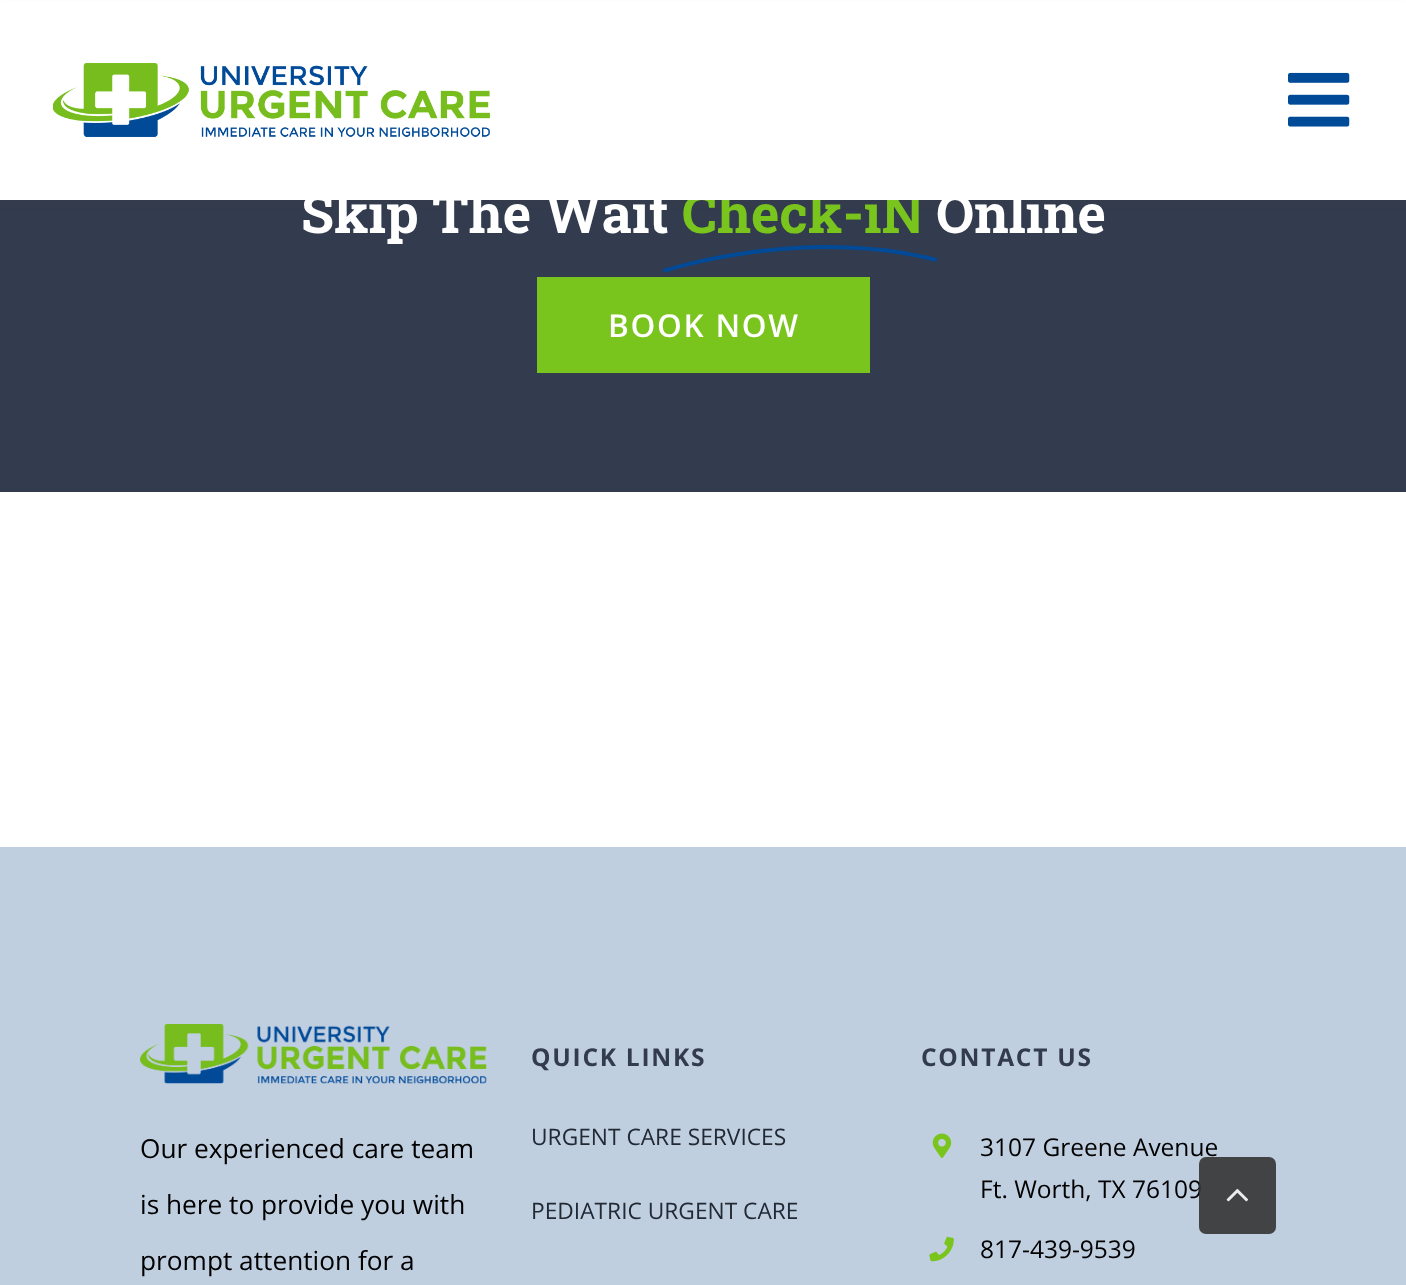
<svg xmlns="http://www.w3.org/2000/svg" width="1406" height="1285">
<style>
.a{font:bold 54px Roboto Slab;fill:#fff}
.b{font:bold 54px Roboto Slab;fill:#7ac41e}
.c{font:600 31.5px Open Sans;letter-spacing:1.75px;fill:#fff}
.d{font:26.25px Open Sans;fill:#000}
.e{font:bold 24.5px Open Sans;letter-spacing:1.75px;fill:#333c4e}
.f{font:22.75px Open Sans;fill:#212934}
.g{font:24.5px Open Sans;fill:#000}
</style>
<rect width="100%" height="100%" fill="#fff"/>
<path fill="#333c4e" d="M0 200h1406v292H0z"/>
<path fill="#50351f0d" filter="blur(4.5px)" d="M0 4h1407v199H0z"/>
<path fill="none" stroke="#004a98" stroke-width="4" stroke-linecap="round" stroke-linejoin="round" d="M665 270.5c0 0 136-44.5 270-11"/>
<path fill="#7ac41e" d="M537 277h333v96H537z"/>
<path fill="#c0cfe0" d="M0 847h1406v438H0z"/>
<image href="3.png" x="140" y="1024" width="347" height="60"/>
<image href="4.png" x="932" y="1133" width="20" height="25"/>
<image href="5.png" x="929" y="1236" width="25" height="26"/>
<text class="a" x="301" y="233">Skip The Wait</text>
<text class="b" x="682" y="233">Check-iN</text>
<path fill="#fff" d="M0 1h1406v199H0z"/>
<image href="1.png" x="53" y="63" width="437" height="74"/>
<image href="2.png" x="1288" y="72" width="62" height="55"/>
<text class="a" x="936" y="233">Online</text>
<text class="c" x="608" y="337">BOOK NOW</text>
<text class="d" x="140" y="1158">Our experienced care team</text>
<text class="d" x="140" y="1214">is here to provide you with</text>
<text class="d" x="140" y="1270">prompt attention for a</text>
<text class="e" x="531" y="1066">QUICK LINKS</text>
<text class="f" x="531" y="1145">URGENT CARE SERVICES</text>
<text class="f" x="531" y="1219">PEDIATRIC URGENT CARE</text>
<text class="e" x="921" y="1066">CONTACT US</text>
<text class="g" x="980" y="1156">3107 Greene Avenue</text>
<text class="g" x="980" y="1198">Ft. Worth, TX 76109</text>
<text class="g" x="980" y="1258">817-439-9539</text>
<rect fill="#333333e6" x="1199" y="1157" width="77" height="77" rx="7"/>
<image href="6.png" x="1226" y="1188" width="22" height="14"/>
</svg>
